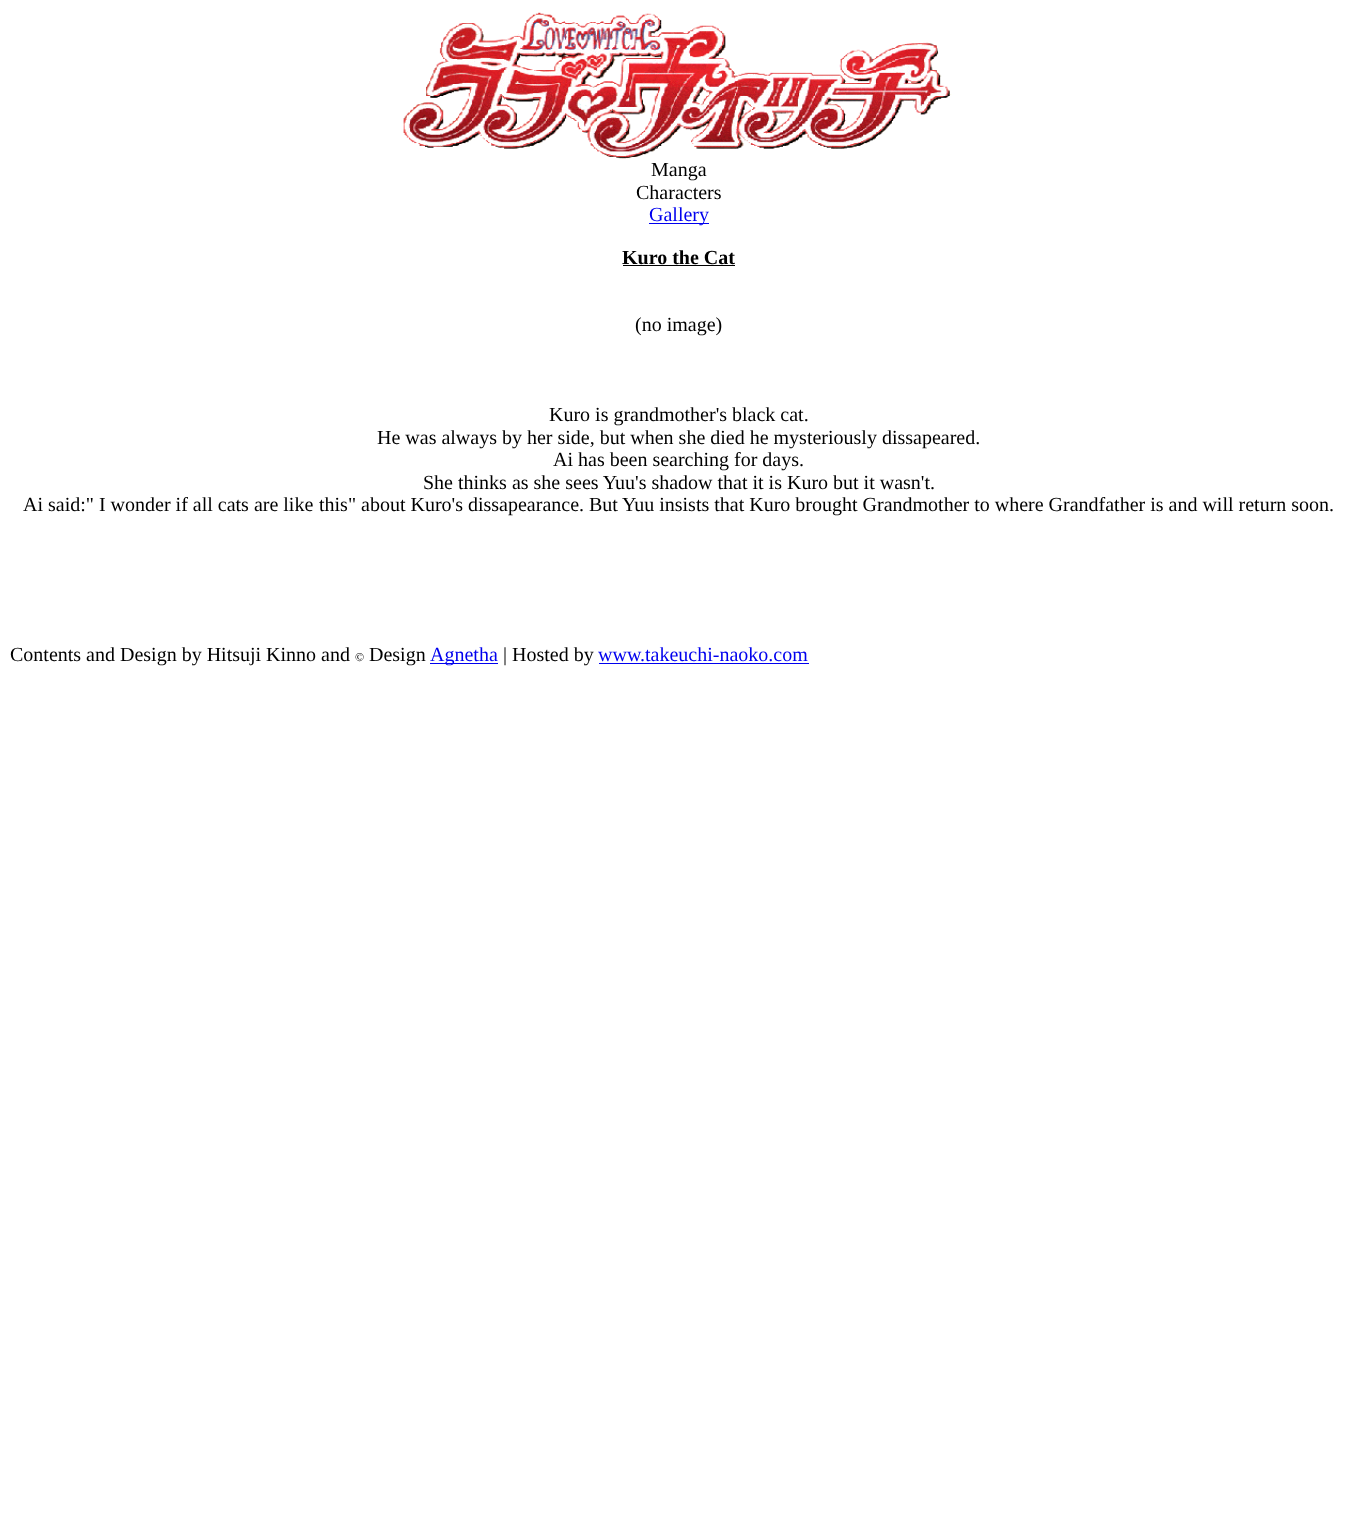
<svg xmlns="http://www.w3.org/2000/svg" width="1357" height="1536">
<style>
.a{font:20px Liberation Serif;fill:#000}
.b{font:20px Liberation Serif;fill:#00e}
.c{font:bold 20px Liberation Serif;fill:#000}
.d{font:12px Liberation Serif;fill:#000}
</style>
<rect width="100%" height="100%" fill="#fff"/>
<image href="1.png" x="403" y="12" width="549" height="147"/>
<path fill="#00e" d="M649 223h60v1H649z"/>
<path fill="#000" d="M623 265h112v1H623z"/>
<path fill="#00e" d="M430 663h68v1H430z"/>
<path fill="#00e" d="M599 663h210v1H599z"/>
<text class="a" x="651" y="176">Manga</text>
<text class="a" x="636" y="199">Characters</text>
<text class="b" x="649" y="221">Gallery</text>
<text class="c" x="622" y="264">Kuro the Cat</text>
<text class="a" x="635" y="331">(no image)</text>
<text class="a" x="549" y="421">Kuro is grandmother's black cat.</text>
<text class="a" x="377" y="444">He was always by her side, but when she died he mysteriously dissapeared.</text>
<text class="a" x="553" y="466">Ai has been searching for days.</text>
<text class="a" x="423" y="489">She thinks as she sees Yuu's shadow that it is Kuro but it wasn't.</text>
<text class="a" x="23" y="511">Ai said:" I wonder if all cats are like</text>
<text class="a" x="319" y="511">this" about Kuro's dissapearance. But</text>
<text class="a" x="622" y="511">Yuu insists that Kuro brought Grandmother to where Grandfather is and will return soon.</text>
<text class="a" x="10" y="661">Contents and Design by Hitsuji Kinno and</text>
<text class="d" x="355" y="661">©</text>
<text class="a" x="369" y="661">Design</text>
<text class="b" x="430" y="661">Agnetha</text>
<text class="a" x="503" y="661">| Hosted by</text>
<text class="b" x="598" y="661">www.takeuchi-naoko.com</text>
</svg>
